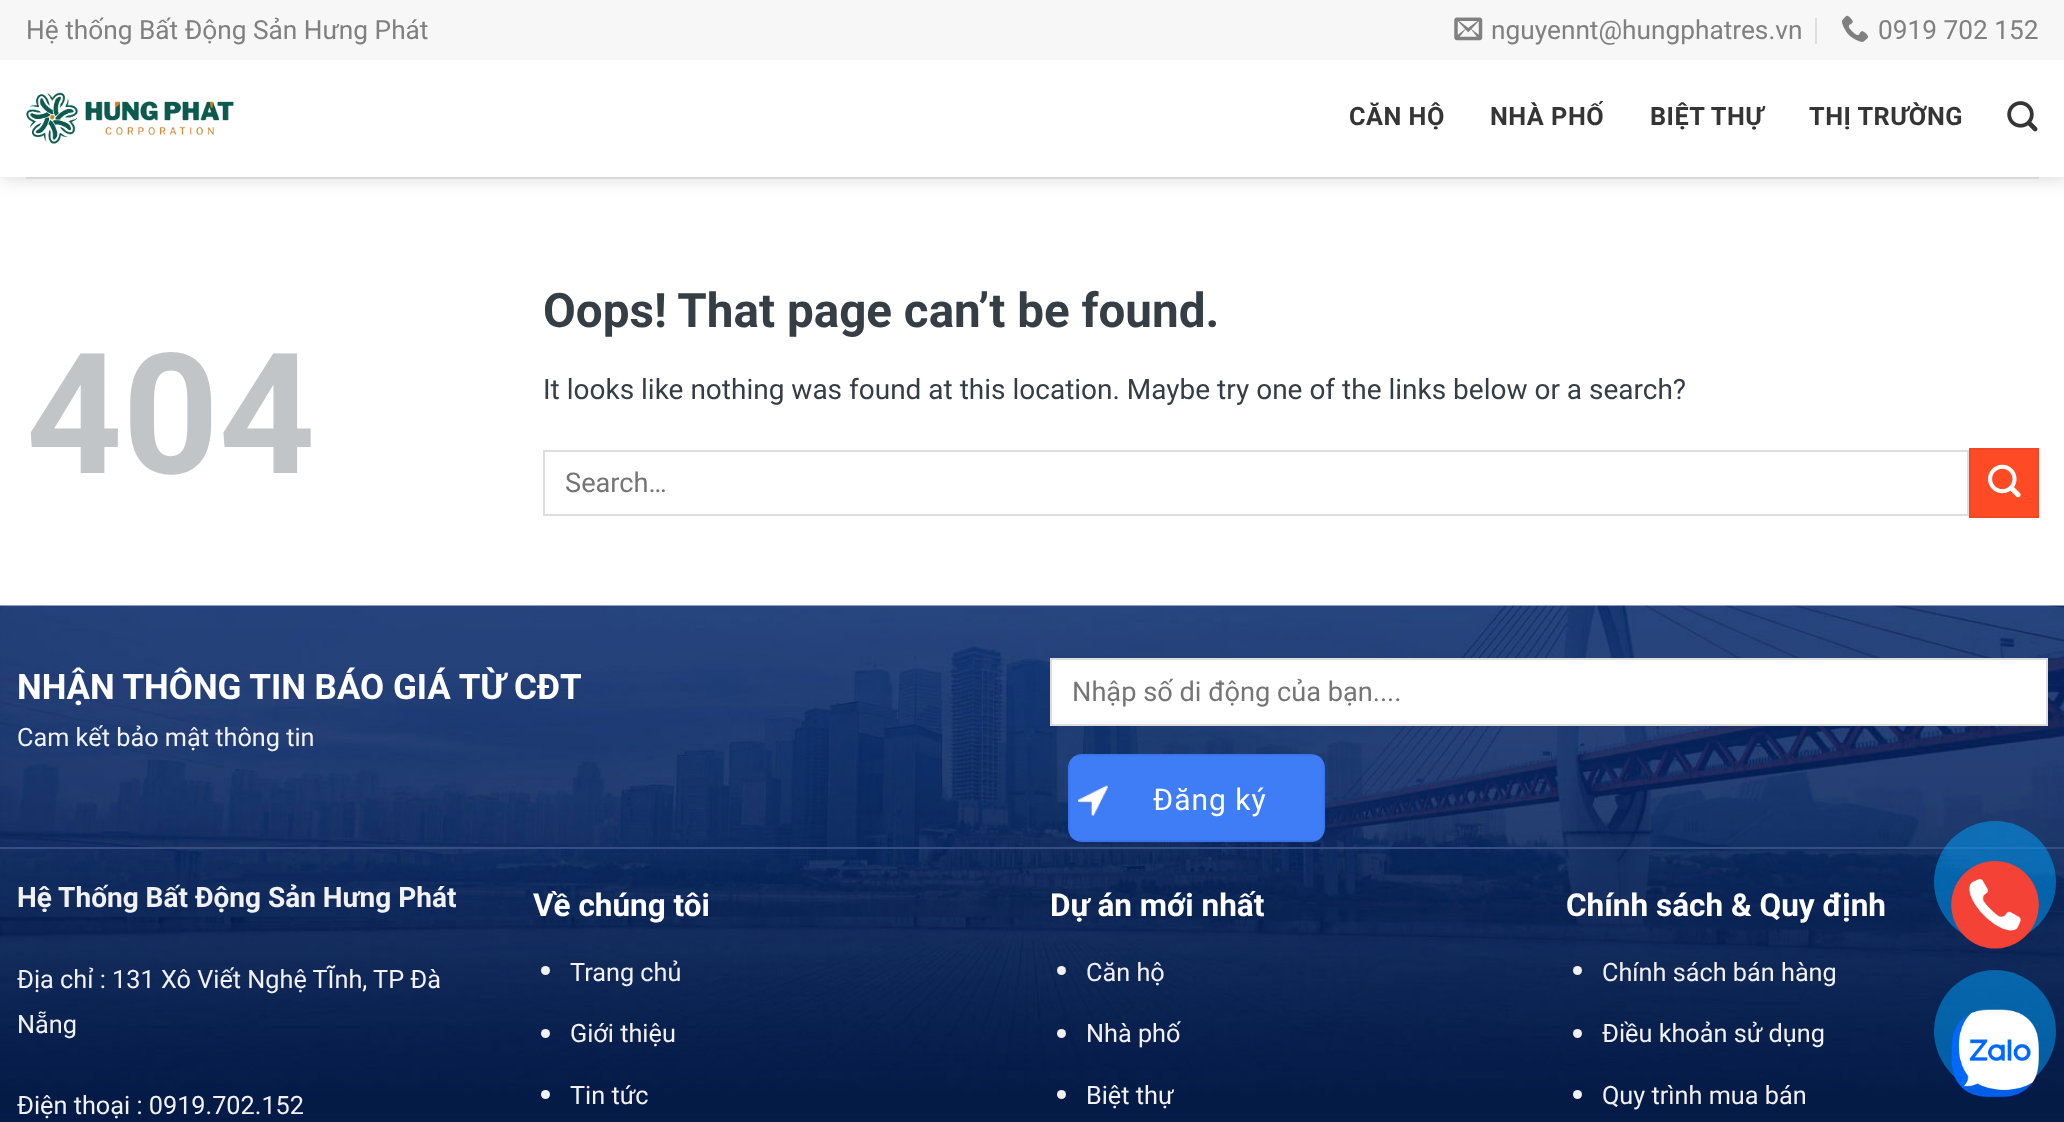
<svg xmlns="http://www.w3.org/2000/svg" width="2064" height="1122">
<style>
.a{font:26.25px Roboto;fill:#808080}
.b{font:bold 25.25px Roboto;letter-spacing:0.5px;fill:#353535}
.c{font:bold 168px Roboto;fill:#c2c5c7}
.d{font:bold 47.6px Roboto;fill:#343e44}
.e{font:28px Roboto;fill:#343e44}
.f{font:27.2px Roboto;fill:#757575}
.g{font:bold 35px Roboto;fill:#fff}
.h{font:25.25px Roboto;fill:#f1f1f1}
.i{font:30px Roboto;letter-spacing:1px;fill:#fff}
.j{font:bold 28px Roboto;fill:#f1f1f1}
.k{font:bold 31.5px Roboto;fill:#fff}
</style>
<defs>
<clipPath id="clip1"><path d="M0 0h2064v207h-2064zm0 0h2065v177h-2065z" clip-rule="evenodd"/></clipPath>
</defs>
<rect width="100%" height="100%" fill="#fff"/>
<g clip-path="url(#clip1)">
<path fill="#00000026" filter="blur(9px)" d="M2 2h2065v177H2z"/>
</g>
<path fill="#ffffffe6" d="M2 176h2062v1H2z"/>
<path fill="#f7f7f7" d="M0 0h2064v60H0z"/>
<image href="1.png" x="1454" y="17" width="29" height="24"/>
<path fill="#dedede" d="M1815 18h2v26H1815z"/>
<image href="2.png" x="1841" y="15" width="28" height="27"/>
<image href="3.png" x="26" y="92" width="208" height="52"/>
<image href="4.png" x="2007" y="101" width="31" height="31"/>
<path fill="#d8d9da" d="M26 177h2013v2H26z"/>
<path fill="none" stroke="#ddd" stroke-width="2" d="M544 451h1424v64H544z"/>
<path fill="#ff4a26" stroke="#f24624" stroke-width="2" d="M1970 449h68v68H1970z"/>
<image href="5.png" x="1988" y="464" width="33" height="34"/>
<image href="6.png" x="0" y="605" width="2064" height="517"/>
<path fill="#344f83" d="M0 847h2064v2H0z"/>
<path fill="#fff" stroke="#ddd" stroke-width="2" d="M1051 659h996v66H1051z"/>
<rect fill="#3f7df6" x="1068" y="754" width="257" height="88" rx="14"/>
<image href="7.png" x="1078" y="785" width="30" height="31"/>
<path fill="none" stroke="#0000000d" stroke-width="2" d="M1069 755h255v86H1069z"/>
<circle fill="#f1f1f1" cx="545.5" cy="970.5" r="4.5"/>
<circle fill="#f1f1f1" cx="545.5" cy="1033.5" r="4.5"/>
<circle fill="#f1f1f1" cx="545.5" cy="1094.5" r="4.5"/>
<circle fill="#f1f1f1" cx="1061.5" cy="970.5" r="4.5"/>
<circle fill="#f1f1f1" cx="1061.5" cy="1033.5" r="4.5"/>
<circle fill="#f1f1f1" cx="1061.5" cy="1094.5" r="4.5"/>
<circle fill="#f1f1f1" cx="1577.5" cy="970.5" r="4.5"/>
<circle fill="#f1f1f1" cx="1577.5" cy="1033.5" r="4.5"/>
<circle fill="#f1f1f1" cx="1577.5" cy="1094.5" r="4.5"/>
<circle fill="#00a3ff80" cx="1995" cy="882" r="61"/>
<image href="8.png" x="1951" y="861" width="88" height="88"/>
<circle fill="#00a3ff80" cx="1995" cy="1031" r="61"/>
<image href="9.png" x="1951" y="1009" width="88" height="89"/>
<text class="a" x="26" y="39">Hệ thống Bất Động Sản Hưng Phát</text>
<text class="a" x="1491" y="39">nguyennt@hungphatres.vn</text>
<text class="a" x="1878" y="39">0919 702 152</text>
<text class="b" x="1349" y="125">CĂN HỘ</text>
<text class="b" x="1490" y="125">NHÀ PHỐ</text>
<text class="b" x="1650" y="125">BIỆT THỰ</text>
<text class="b" x="1809" y="125">THỊ TRƯỜNG</text>
<text class="c" x="26" y="473">404</text>
<text class="d" x="543" y="327">Oops! That page can’t be found.</text>
<text class="e" x="543" y="399">It looks like nothing was found at this location. Maybe try one of the links below or a search?</text>
<text class="f" x="565" y="492">Search…</text>
<text class="g" x="17" y="699">NHẬN THÔNG TIN BÁO GIÁ TỪ CĐT</text>
<text class="h" x="17" y="746">Cam kết bảo mật thông tin</text>
<text class="f" x="1072" y="701">Nhập số di động của bạn....</text>
<text class="i" x="1153" y="810">Đăng ký</text>
<text class="j" x="17" y="907">Hệ Thống Bất Động Sản Hưng Phát</text>
<text class="h" x="17" y="988">Địa chỉ : 131 Xô Viết Nghệ TĨnh, TP Đà</text>
<text class="h" x="17" y="1033">Nẵng</text>
<text class="h" x="17" y="1114">Điện thoại : 0919.702.152</text>
<text class="k" x="533" y="916">Về chúng tôi</text>
<text class="h" x="570" y="981">Trang chủ</text>
<text class="h" x="570" y="1042">Giới thiệu</text>
<text class="h" x="570" y="1104">Tin tức</text>
<text class="k" x="1050" y="916">Dự án mới nhất</text>
<text class="h" x="1086" y="981">Căn hộ</text>
<text class="h" x="1086" y="1042">Nhà phố</text>
<text class="h" x="1086" y="1104">Biệt thự</text>
<text class="k" x="1566" y="916">Chính sách &amp; Quy định</text>
<text class="h" x="1602" y="981">Chính sách bán hàng</text>
<text class="h" x="1602" y="1042">Điều khoản sử dụng</text>
<text class="h" x="1602" y="1104">Quy trình mua bán</text>
</svg>
